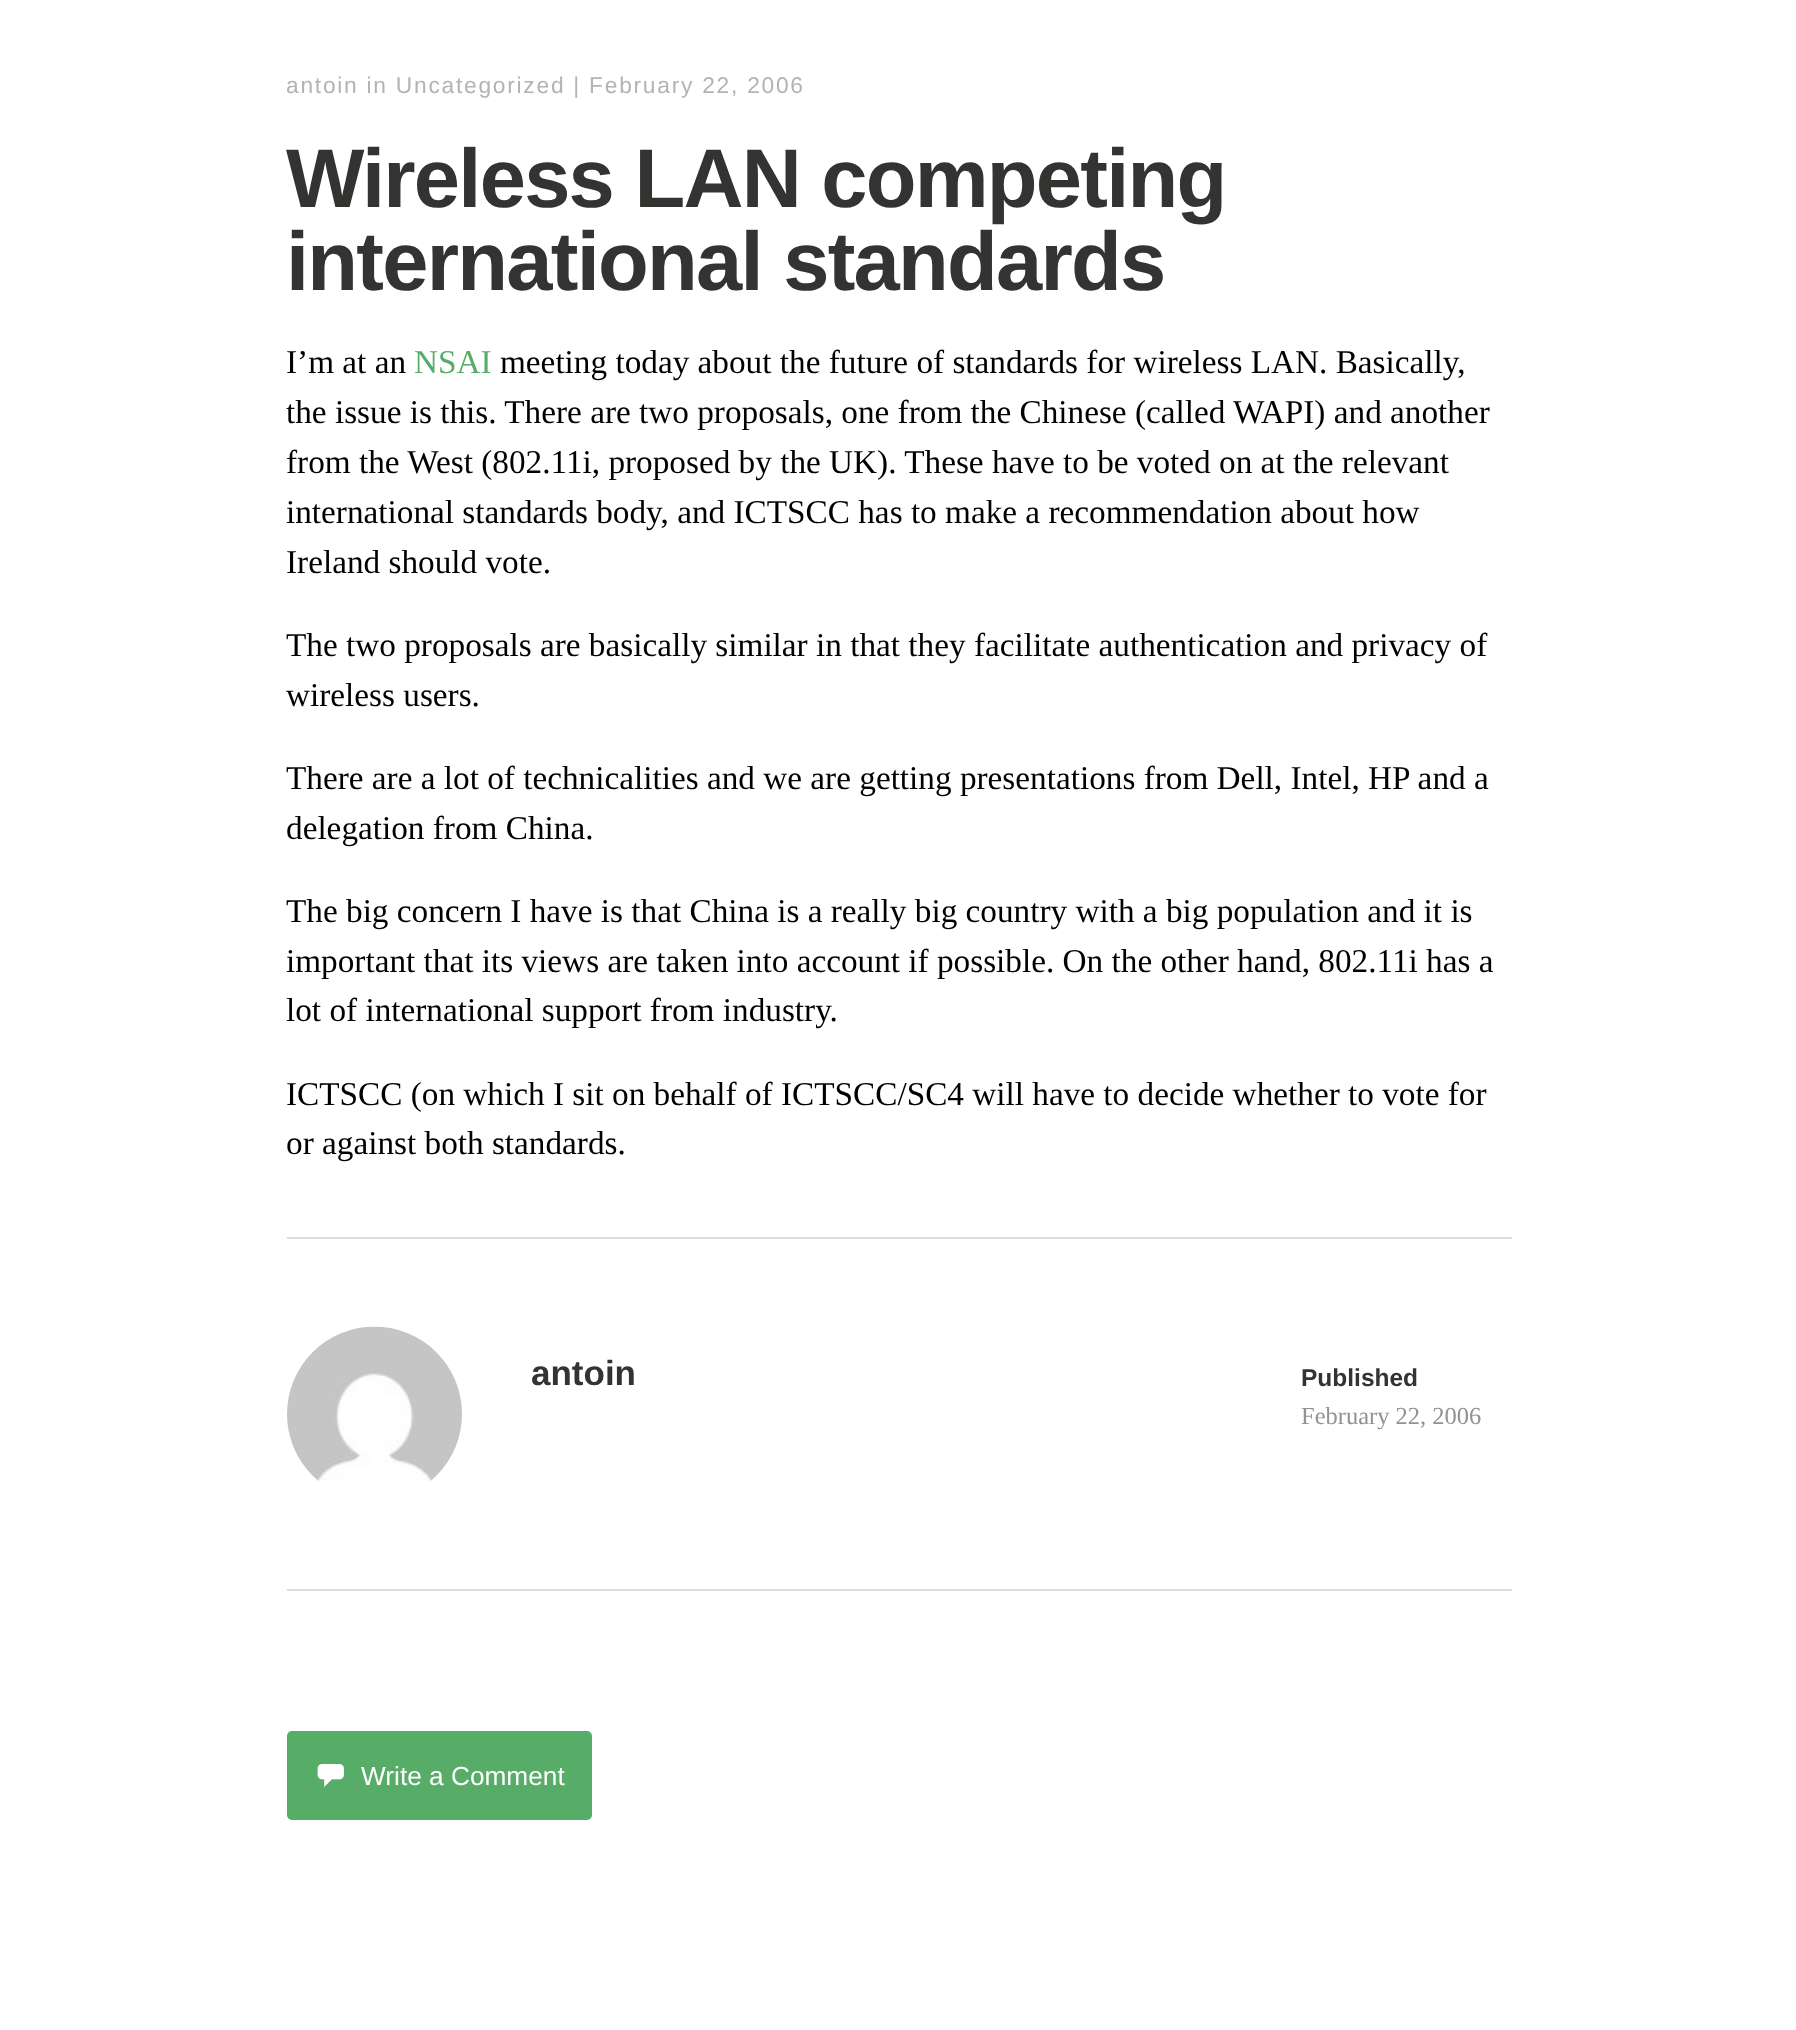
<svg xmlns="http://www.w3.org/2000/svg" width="1796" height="2030">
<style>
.a{font:22.75px Liberation Sans;letter-spacing:1.75px;fill:#b3b3b1}
.b{font:bold 83.1px Liberation Sans;letter-spacing:-1.75px;fill:#333332}
.c{font:33.25px Liberation Serif;fill:#000}
.d{font:33.25px Liberation Serif;fill:#57ad68}
.e{font:bold 35px Liberation Sans;fill:#333332}
.f{font:bold 24.5px Liberation Sans;fill:#333332}
.g{font:24.5px Liberation Serif;fill:#929292}
.h{font:26.25px Liberation Sans;fill:#fff}
</style>
<rect width="100%" height="100%" fill="#fff"/>
<path fill="#ddd" d="M287 1237h1225v2H287z"/>
<path fill="#ddd" d="M287 1589h1225v2H287z"/>
<image href="1.png" x="287" y="1326" width="175" height="155"/>
<rect fill="#57ad68" x="287" y="1731" width="305" height="89" rx="5"/>
<image href="2.png" x="317" y="1764" width="27" height="23"/>
<text class="a" x="286" y="93">antoin in Uncategorized | February 22, 2006</text>
<text class="b" x="286" y="207">Wireless LAN competing</text>
<text class="b" x="286" y="290">international standards</text>
<text class="c" x="286" y="373">I’m at an</text>
<text class="d" x="414" y="373">NSAI</text>
<text class="c" x="500" y="373">meeting today about the future of standards for wireless LAN. Basically,</text>
<text class="c" x="286" y="423">the issue is this. There are two proposals, one from the Chinese (called WAPI) and another</text>
<text class="c" x="286" y="473">from the West (802.11i, proposed by the UK). These have to be voted on at the relevant</text>
<text class="c" x="286" y="523">international standards body, and ICTSCC has to make a recommendation about how</text>
<text class="c" x="286" y="573">Ireland should vote.</text>
<text class="c" x="286" y="656">The two proposals are basically similar in that they facilitate authentication and privacy of</text>
<text class="c" x="286" y="706">wireless users.</text>
<text class="c" x="286" y="789">There are a lot of technicalities and we are getting presentations from Dell, Intel, HP and a</text>
<text class="c" x="286" y="839">delegation from China.</text>
<text class="c" x="286" y="922">The big concern I have is that China is a really big country with a big population and it is</text>
<text class="c" x="286" y="972">important that its views are taken into account if possible. On the other hand, 802.11i has a</text>
<text class="c" x="286" y="1021">lot of international support from industry.</text>
<text class="c" x="286" y="1105">ICTSCC (on which I sit on behalf of ICTSCC/SC4 will have to decide whether to vote for</text>
<text class="c" x="286" y="1154">or against both standards.</text>
<text class="e" x="531" y="1385">antoin</text>
<text class="f" x="1301" y="1386">Published</text>
<text class="g" x="1301" y="1424">February 22, 2006</text>
<text class="h" x="361" y="1785">Write a Comment</text>
</svg>
